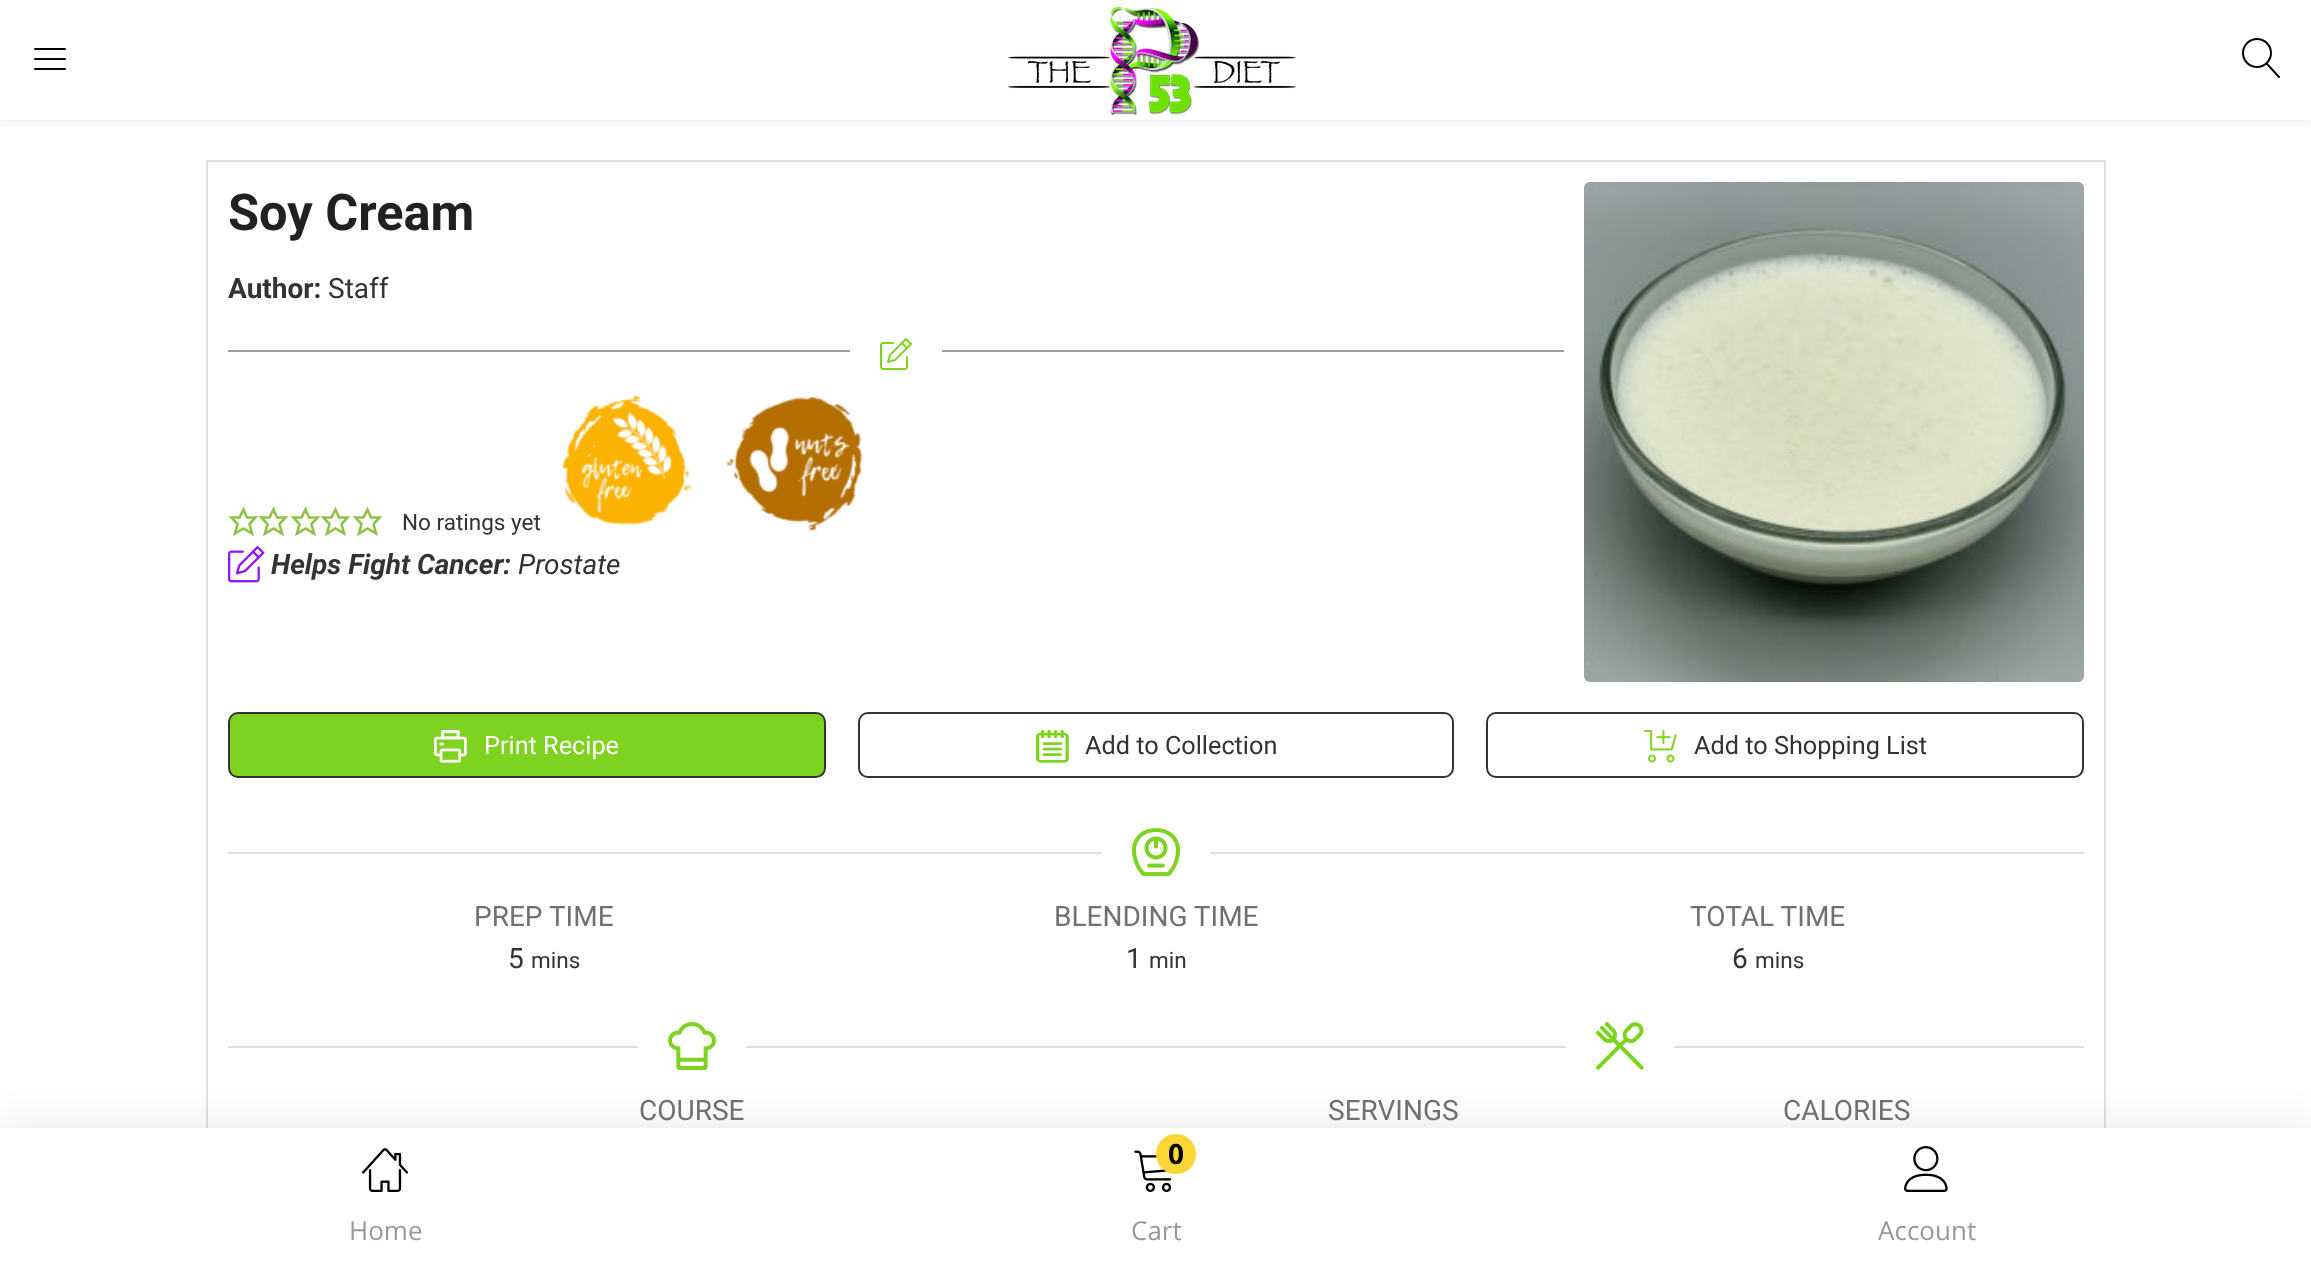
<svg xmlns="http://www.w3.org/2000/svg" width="2311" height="1264">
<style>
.a{font:bold 50.5px Roboto;fill:#212121}
.b{font:bold 28px Roboto;fill:#333}
.c{font:28px Roboto;fill:#333}
.d{font:22.5px Roboto;fill:#333}
.e{font:italic bold 28px Roboto;fill:#333}
.f{font:italic 28px Roboto;fill:#333}
.g{font:25.25px Roboto;fill:#fff}
.h{font:25.25px Roboto;fill:#333}
.i{font:28px Roboto;fill:#707070}
.j{font:26px Open Sans;fill:#999}
.k{font:bold 28px Open Sans;fill:#000}
</style>
<defs>
<clipPath id="clip1"><path d="M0 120h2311v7H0z"/></clipPath>
</defs>
<rect width="100%" height="100%" fill="#fff"/>
<g clip-path="url(#clip1)">
<path fill="#0000001a" filter="blur(8px)" d="M0 0h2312v120H0z"/>
</g>
<image href="1.png" x="34" y="48" width="32" height="22"/>
<image href="2.png" x="1008" y="6" width="288" height="110"/>
<image href="3.png" x="2242" y="38" width="38" height="40"/>
<path fill="none" stroke="#e0e0e0" stroke-width="2" d="M207 161h1898v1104H207z"/>
<image href="4.png" x="1584" y="182" width="500" height="500"/>
<path fill="#9b9b9b" d="M228 350h622v2H228z"/>
<image href="5.png" x="880" y="338" width="32" height="32"/>
<path fill="#9b9b9b" d="M942 350h622v2H942z"/>
<path fill="none" stroke="#8bc34a" stroke-width="2.6" stroke-linecap="square" d="M243.5 509.5l3.5 8h8.5l-6 6.5l2.5 9.5l-8.5-5l-8.5 5l2.5-9.5l-6-6.5h8zm30 0l3.5 8h8.5l-6 6.5l2.5 9.5l-8.5-5l-8.5 5l2.5-9.5l-6-6.5h8z"/>
<path fill="none" stroke="#8bc34a" stroke-width="2.6" stroke-linecap="square" d="M305.5 509.5l3.5 8h8.5l-6 6.5l2.5 9.5l-8.5-5l-8.5 5l2.5-9.5l-6-6.5h8zm30 0l3.5 8h8.5l-6 6.5l2.5 9.5l-8.5-5l-8.5 5l2.5-9.5l-6-6.5h8z"/>
<path fill="none" stroke="#8bc34a" stroke-width="2.6" stroke-linecap="square" d="M367.5 509.5l3.5 8h8.5l-6 6.5l2.5 9.5l-8.5-5l-8.5 5l2.5-9.5l-6-6.5h8z"/>
<image href="6.png" x="561" y="394" width="131" height="132"/>
<image href="7.png" x="726" y="396" width="136" height="135"/>
<image href="8.png" x="228" y="546" width="37" height="37"/>
<rect fill="#7ed321" stroke="#333" stroke-width="2" x="229" y="713" width="596" height="64" rx="9"/>
<image href="9.png" x="434" y="730" width="33" height="33"/>
<rect fill="none" stroke="#333" stroke-width="2" x="859" y="713" width="594" height="64" rx="9"/>
<image href="10.png" x="1036" y="730" width="33" height="33"/>
<rect fill="none" stroke="#333" stroke-width="2" x="1487" y="713" width="596" height="64" rx="9"/>
<image href="11.png" x="1644" y="730" width="33" height="33"/>
<path fill="#e0e0e0" d="M228 852h874v2H228z"/>
<image href="12.png" x="1132" y="828" width="48" height="48"/>
<path fill="#e0e0e0" d="M1210 852h874v2H1210z"/>
<path fill="#e0e0e0" d="M228 1046h410v2H228z"/>
<image href="13.png" x="668" y="1022" width="48" height="48"/>
<path fill="#e0e0e0" d="M746 1046h820v2H746z"/>
<image href="14.png" x="1596" y="1022" width="48" height="48"/>
<path fill="#e0e0e0" d="M1674 1046h410v2H1674z"/>
<path fill="#0000001a" filter="blur(20px)" d="M0 1128h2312v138H0z"/>
<path fill="#fff" d="M0 1128h2311v136H0z"/>
<image href="15.png" x="362" y="1148" width="46" height="44"/>
<image href="16.png" x="1134" y="1150" width="38" height="42"/>
<circle fill="#fcd537" cx="1176" cy="1154" r="20"/>
<image href="17.png" x="1904" y="1146" width="44" height="46"/>
<text class="a" x="228" y="230">Soy Cream</text>
<text class="b" x="228" y="298">Author:</text>
<text class="c" x="328" y="298">Staff</text>
<text class="d" x="402" y="530">No ratings yet</text>
<text class="e" x="271" y="574">Helps Fight Cancer:</text>
<text class="f" x="518" y="574">Prostate</text>
<text class="g" x="484" y="754">Print Recipe</text>
<text class="h" x="1085" y="754">Add to Collection</text>
<text class="h" x="1694" y="754">Add to Shopping List</text>
<text class="i" x="474" y="926">PREP TIME</text>
<text class="c" x="508" y="968">5</text>
<text class="d" x="531" y="968">mins</text>
<text class="i" x="1054" y="926">BLENDING TIME</text>
<text class="c" x="1126" y="968">1</text>
<text class="d" x="1149" y="968">min</text>
<text class="i" x="1690" y="926">TOTAL TIME</text>
<text class="c" x="1732" y="968">6</text>
<text class="d" x="1755" y="968">mins</text>
<text class="i" x="639" y="1120">COURSE</text>
<text class="i" x="1328" y="1120">SERVINGS</text>
<text class="i" x="1783" y="1120">CALORIES</text>
<text class="j" x="349" y="1240">Home</text>
<text class="k" x="1168" y="1164">0</text>
<text class="j" x="1131" y="1240">Cart</text>
<text class="j" x="1878" y="1240">Account</text>
</svg>
